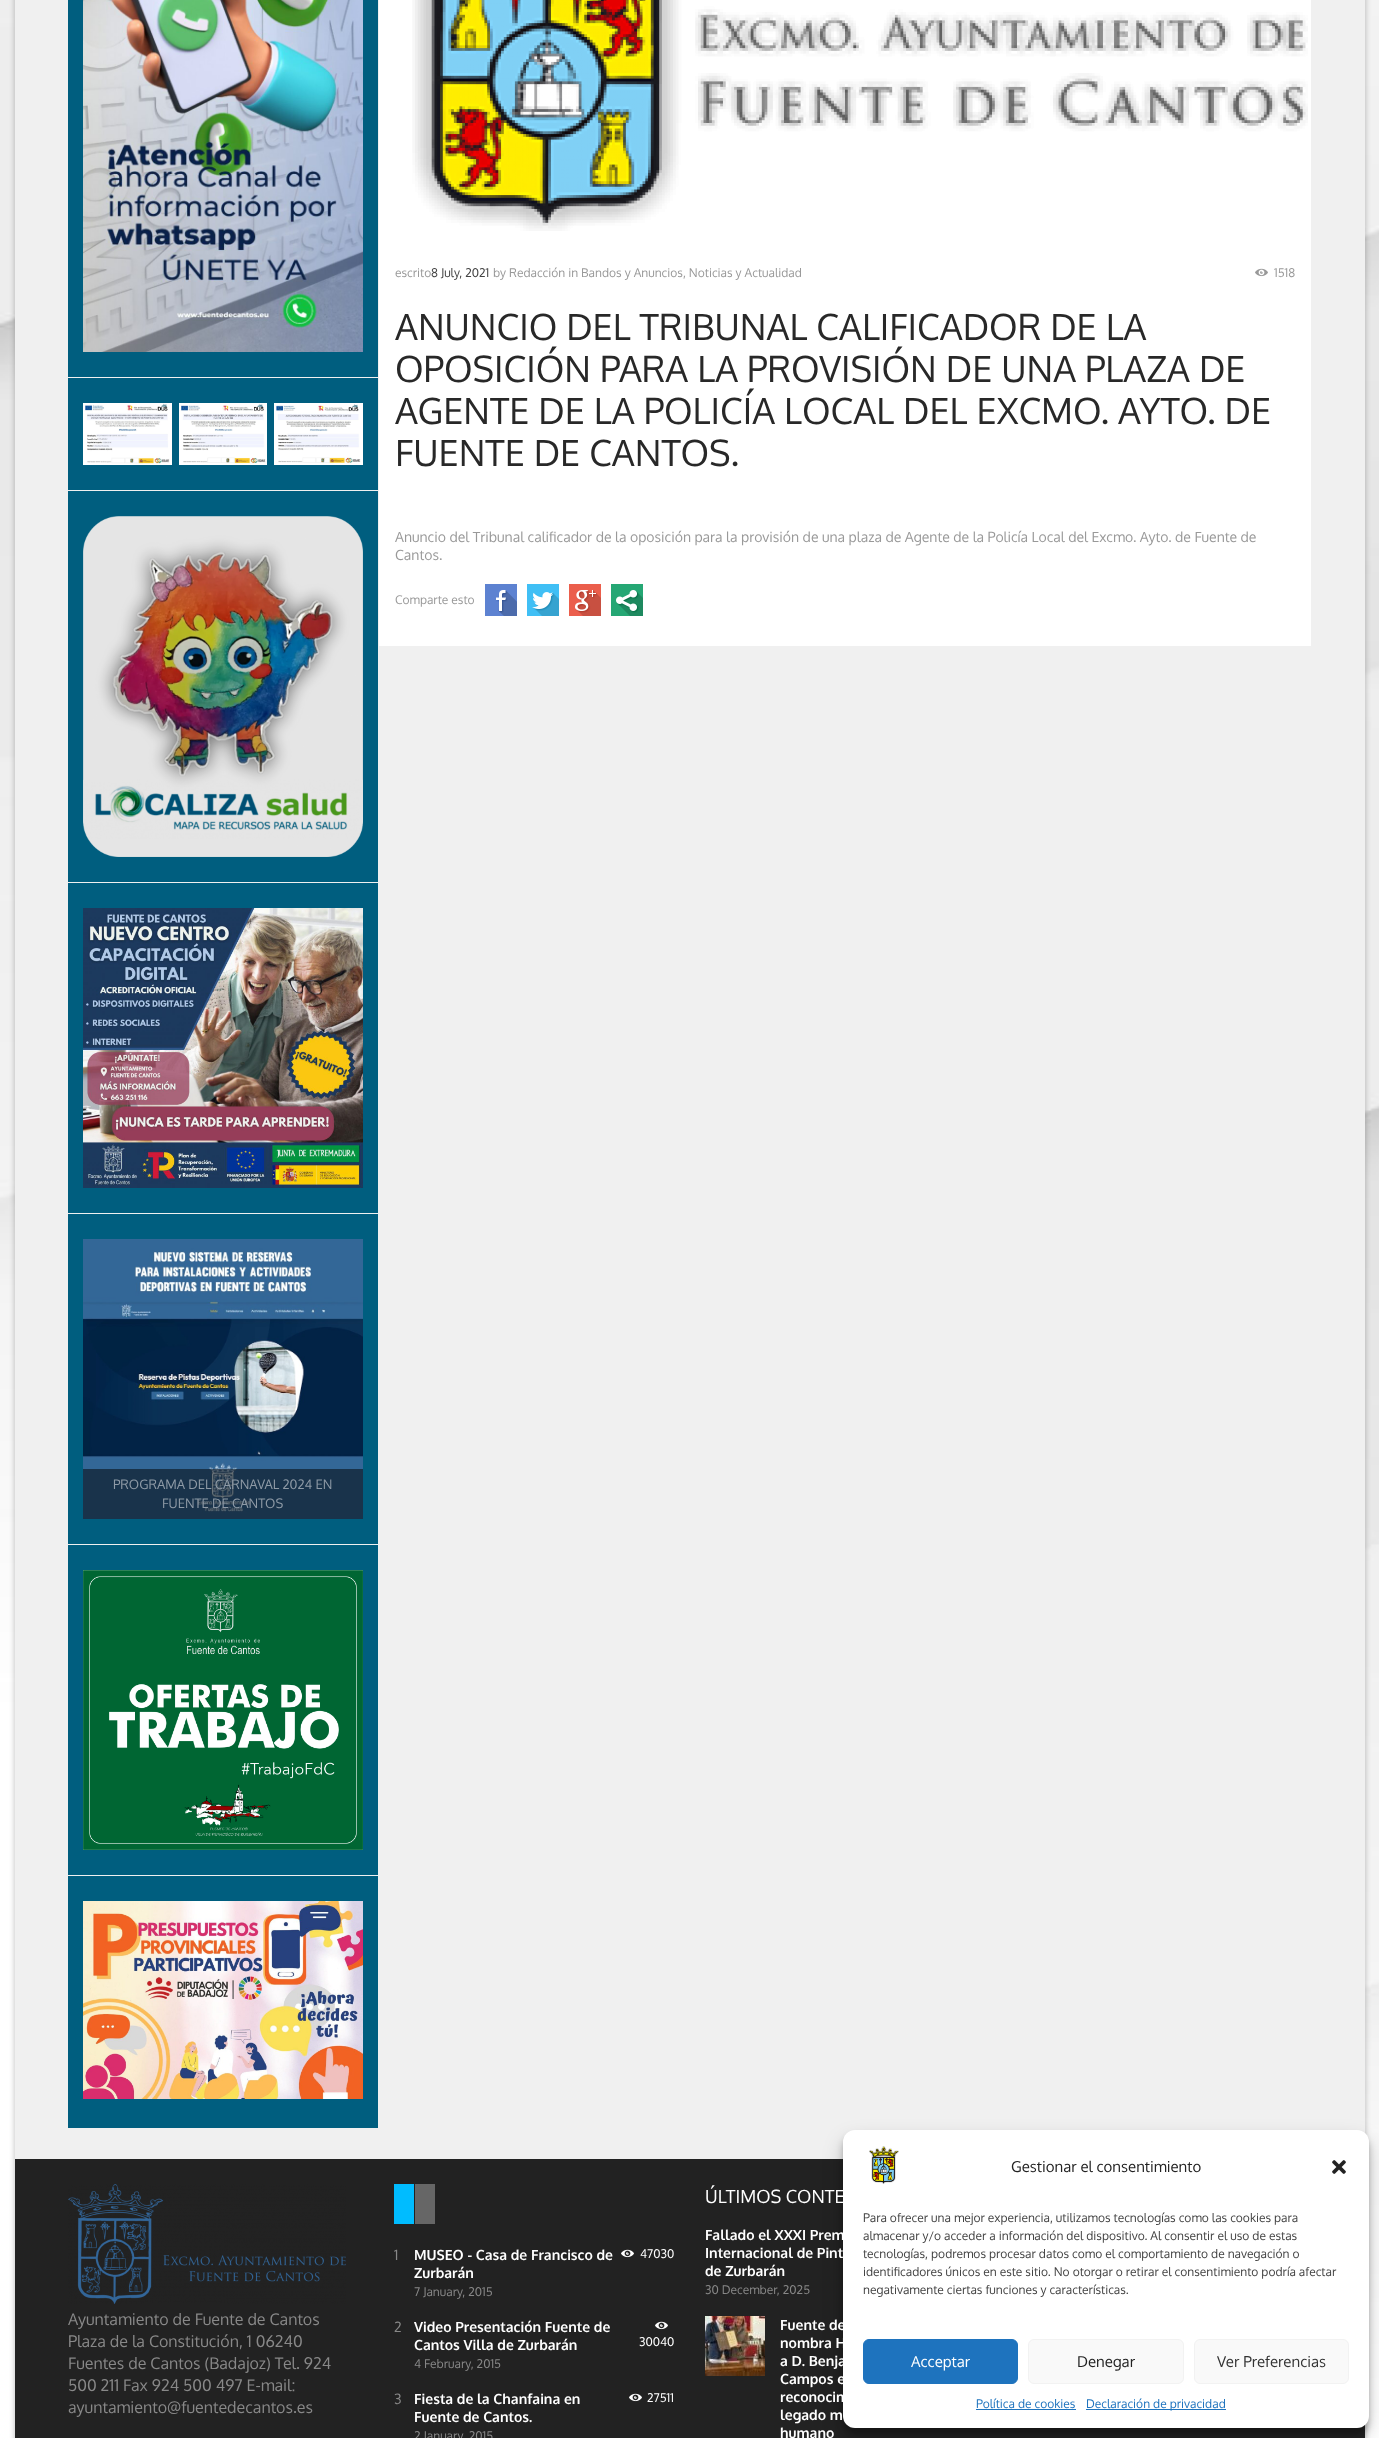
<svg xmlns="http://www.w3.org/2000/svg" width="1379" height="2438">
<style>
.a{font:12px Oxygen;fill:#999}
.b{font:12px Oxygen;fill:#434343}
.c{font:36px Oxygen;fill:#282828}
.d{font:14px Oxygen;fill:#999}
.e{font:13px Oxygen;fill:#8e9aa6}
.f{font:16px Oxygen;fill:#888}
.g{font:14px Oxygen;fill:#888}
.h{font:bold 14px Oxygen;fill:#fff}
.i{font:12px Oxygen;fill:#fff}
.j{font:12px Oxygen;fill:#888}
.k{font:18px Oxygen;fill:#fff}
.l{font:15px Oxygen;fill:#222}
.m{font:15px Oxygen;fill:#fff}
.n{font:15px Oxygen;fill:#333}
.o{font:12px Oxygen;fill:#1e73be}
</style>
<rect width="100%" height="100%" fill="#fff"/>
<image href="1.png" x="0" y="0" width="1379" height="2438"/>
<path fill="#00000033" filter="blur(2.5px)" d="M14 -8h1352v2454H14z"/>
<path fill="#f0f0f0" d="M15 0h1350v2159H15z"/>
<path fill="#fff" d="M379 0h932v646H379z"/>
<image href="2.png" x="412" y="0" width="896" height="231"/>
<image href="3.png" x="1255" y="268" width="13" height="9"/>
<image href="4.png" x="485" y="584" width="32" height="32"/>
<image href="5.png" x="527" y="584" width="32" height="32"/>
<image href="6.png" x="569" y="584" width="32" height="32"/>
<image href="7.png" x="611" y="584" width="32" height="32"/>
<path fill="#005e7f" d="M68 0h310v377H68z"/>
<image href="8.png" x="83" y="0" width="280" height="352"/>
<path fill="#005e7f" d="M68 378h310v112H68z"/>
<image href="9.png" x="83" y="403" width="89" height="62"/>
<image href="10.png" x="179" y="403" width="88" height="62"/>
<image href="11.png" x="274" y="403" width="89" height="62"/>
<path fill="#005e7f" d="M68 491h310v391H68z"/>
<image href="12.png" x="83" y="516" width="280" height="341"/>
<path fill="#005e7f" d="M68 883h310v330H68z"/>
<image href="13.png" x="83" y="908" width="280" height="280"/>
<path fill="#005e7f" d="M68 1214h310v330H68z"/>
<image href="14.png" x="83" y="1239" width="280" height="280"/>
<path fill="#00000080" d="M83 1469h280v50H83z"/>
<path fill="#005e7f" d="M68 1545h310v330H68z"/>
<image href="15.png" x="83" y="1570" width="280" height="280"/>
<path fill="#005e7f" d="M68 1876h310v252H68z"/>
<image href="16.png" x="83" y="1901" width="280" height="198"/>
<path fill="#222" d="M15 2159h1350v279H15z"/>
<image href="17.png" x="68" y="2184" width="278" height="120"/>
<path fill="#00bcff" d="M394 2184h20v40H394z"/>
<path fill="#666" d="M415 2184h20v40H415z"/>
<image href="18.png" x="621" y="2249" width="13" height="9"/>
<image href="18.png" x="655" y="2321" width="13" height="9"/>
<image href="18.png" x="629" y="2393" width="13" height="9"/>
<image href="19.png" x="705" y="2316" width="60" height="60"/>
<rect fill="#0000003b" filter="blur(3px)" x="843" y="2136" width="526" height="298" rx="12"/>
<rect fill="#00000030" filter="blur(10px)" x="843" y="2140" width="526" height="298" rx="12"/>
<rect fill="#fff" x="843" y="2130" width="526" height="298" rx="12"/>
<image href="20.png" x="869" y="2146" width="30" height="38"/>
<image href="21.png" x="1332" y="2160" width="14" height="14"/>
<rect fill="#1e73be" stroke="#1e73be" x="863.5" y="2339.5" width="154" height="44" rx="5.5"/>
<rect fill="#f9f9f9" stroke="#f2f2f2" x="1028.5" y="2339.5" width="155" height="44" rx="5.5"/>
<rect fill="#f9f9f9" stroke="#f2f2f2" x="1194.5" y="2339.5" width="154" height="44" rx="5.5"/>
<path fill="#1e73be" d="M976 2409h100v1H976z"/>
<path fill="#1e73be" d="M1086 2409h140v1H1086z"/>
<text class="a" x="395" y="277">escrito</text>
<text class="b" x="431" y="277">8 July, 2021</text>
<text class="a" x="493" y="277">by Redacción in Bandos y Anuncios, Noticias y Actualidad</text>
<text class="a" x="1274" y="277">1518</text>
<text class="c" x="395" y="340">ANUNCIO DEL TRIBUNAL CALIFICADOR DE LA</text>
<text class="c" x="395" y="382">OPOSICIÓN PARA LA PROVISIÓN DE UNA PLAZA DE</text>
<text class="c" x="395" y="424">AGENTE DE LA POLICÍA LOCAL DEL EXCMO. AYTO. DE</text>
<text class="c" x="395" y="466">FUENTE DE CANTOS.</text>
<text class="d" x="395" y="542">Anuncio del Tribunal calificador de la oposición para la provisión de una plaza de Agente de la Policía Local del Excmo. Ayto. de Fuente de</text>
<text class="d" x="395" y="560">Cantos.</text>
<text class="a" x="395" y="604">Comparte esto</text>
<text class="e" x="113" y="1489">PROGRAMA DEL CARNAVAL 2024 EN</text>
<text class="e" x="162" y="1508">FUENTE DE CANTOS</text>
<text class="f" x="68" y="2325">Ayuntamiento de Fuente de Cantos</text>
<text class="f" x="68" y="2347">Plaza de la Constitución, 1 06240</text>
<text class="f" x="68" y="2369">Fuentes de Cantos (Badajoz) Tel. 924</text>
<text class="f" x="68" y="2391">500 211 Fax 924 500 497 E-mail:</text>
<text class="f" x="68" y="2413">ayuntamiento@fuentedecantos.es</text>
<text class="g" x="394" y="2260">1</text>
<text class="h" x="414" y="2260">MUSEO - Casa de Francisco de</text>
<text class="h" x="414" y="2278">Zurbarán</text>
<text class="i" x="640" y="2258">47030</text>
<text class="j" x="414" y="2296">7 January, 2015</text>
<text class="g" x="394" y="2332">2</text>
<text class="h" x="414" y="2332">Video Presentación Fuente de</text>
<text class="h" x="414" y="2350">Cantos Villa de Zurbarán</text>
<text class="i" x="639" y="2346">30040</text>
<text class="j" x="414" y="2368">4 February, 2015</text>
<text class="g" x="394" y="2404">3</text>
<text class="i" x="647" y="2402">27511</text>
<text class="j" x="414" y="2440">2 January, 2015</text>
<text class="h" x="414" y="2404">Fiesta de la Chanfaina en</text>
<text class="h" x="414" y="2422">Fuente de Cantos.</text>
<text class="k" x="705" y="2203">ÚLTIMOS CONTE</text>
<text class="h" x="705" y="2240">Fallado el XXXI Prem</text>
<text class="h" x="705" y="2258">Internacional de Pint</text>
<text class="h" x="705" y="2276">de Zurbarán</text>
<text class="j" x="705" y="2294">30 December, 2025</text>
<text class="h" x="780" y="2330">Fuente de</text>
<text class="h" x="780" y="2348">nombra H</text>
<text class="h" x="780" y="2366">a D. Benja</text>
<text class="h" x="780" y="2384">Campos e</text>
<text class="h" x="780" y="2402">reconocim</text>
<text class="h" x="780" y="2420">legado m</text>
<text class="h" x="780" y="2438">humano</text>
<text class="l" x="1011" y="2172">Gestionar el consentimiento</text>
<text class="b" x="863" y="2222">Para ofrecer una mejor experiencia, utilizamos tecnologías como las cookies para</text>
<text class="b" x="863" y="2240">almacenar y/o acceder a información del dispositivo. Al consentir el uso de estas</text>
<text class="b" x="863" y="2258">tecnologías, podremos procesar datos como el comportamiento de navegación o</text>
<text class="b" x="863" y="2276">identificadores únicos en este sitio. No otorgar o retirar el consentimiento podría afectar</text>
<text class="b" x="863" y="2294">negativamente ciertas funciones y características.</text>
<text class="m" x="911" y="2367">Acceptar</text>
<text class="l" x="1077" y="2367">Denegar</text>
<text class="n" x="1217" y="2367">Ver Preferencias</text>
<text class="o" x="976" y="2408">Política de cookies</text>
<text class="o" x="1086" y="2408">Declaración de privacidad</text>
</svg>
